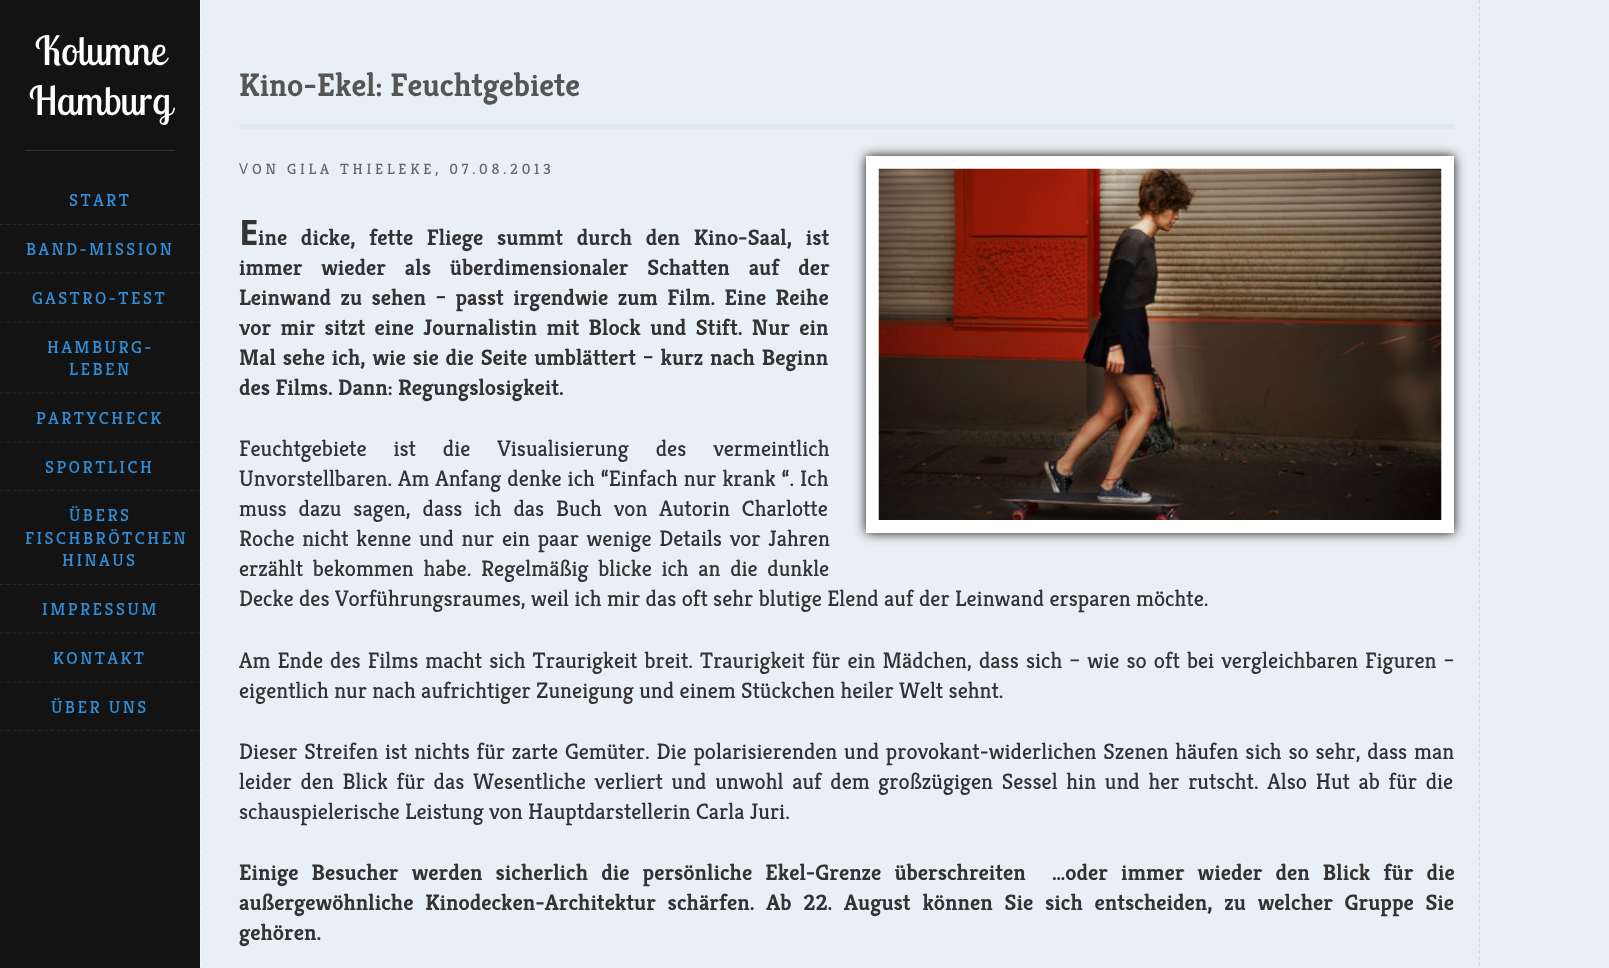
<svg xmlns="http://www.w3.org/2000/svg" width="1609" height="968">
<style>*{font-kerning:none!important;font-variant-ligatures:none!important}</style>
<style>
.a{font:40px Lobster Two;fill:#fff}
.b{font:17.5px Kreon;letter-spacing:2.5px;fill:#308fd9}
.c{font:bold 32.5px Kreon;fill:#555}
.d{font:15px Noto Sans;letter-spacing:3.75px;fill:#626a6f}
.e{font:15px Kreon;letter-spacing:3.75px;fill:#626a6f}
.f{font:bold 35px Noto Sans;fill:#333}
.g{font:bold 22.5px Kreon;fill:#333}
.h{font:22.5px Kreon;fill:#333}
</style>
<rect width="100%" height="100%" fill="#e9f0f5"/>
<path fill="none" stroke="#f4f8fa" stroke-width="1.2" stroke-dasharray="3.75 2.5" d="M200.5 0v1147.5"/>
<path fill="#131313" d="M0 0h200v968H0z"/>
<path fill="#333" d="M25 150h150v1H25z"/>
<path fill="none" stroke="#282828" stroke-width="1.2" stroke-dasharray="3.75 2.58" d="M0 224.5h200"/>
<path fill="none" stroke="#282828" stroke-width="1.2" stroke-dasharray="3.75 2.58" d="M0 273h200"/>
<path fill="none" stroke="#282828" stroke-width="1.2" stroke-dasharray="3.75 2.58" d="M0 322h200"/>
<path fill="none" stroke="#282828" stroke-width="1.2" stroke-dasharray="3.75 2.58" d="M0 393h200"/>
<path fill="none" stroke="#282828" stroke-width="1.2" stroke-dasharray="3.75 2.58" d="M0 442h200"/>
<path fill="none" stroke="#282828" stroke-width="1.2" stroke-dasharray="3.75 2.58" d="M0 490.5h200"/>
<path fill="none" stroke="#282828" stroke-width="1.2" stroke-dasharray="3.75 2.58" d="M0 584.5h200"/>
<path fill="none" stroke="#282828" stroke-width="1.2" stroke-dasharray="3.75 2.58" d="M0 633h200"/>
<path fill="none" stroke="#282828" stroke-width="1.2" stroke-dasharray="3.75 2.58" d="M0 682h200"/>
<path fill="none" stroke="#282828" stroke-width="1.2" stroke-dasharray="3.75 2.58" d="M0 730.5h200"/>
<path fill="none" stroke="#d4d9dd" stroke-width="1.2" stroke-dasharray="3.75 2.5" d="M1479.5 0v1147.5"/>
<path fill="#f2f6f9" d="M239 130v1h1215v-65v64z"/>
<path fill="#e0eaf1" d="M239 124h1215v6H239z"/>
<path fill="#131313" filter="blur(6px)" d="M866 156h588v377H866z"/>
<path fill="none" stroke="#fff" stroke-width="13" d="M872.5 162.5h575v364H872.5z"/>
<image href="1.png" x="878" y="168" width="564" height="352"/>
<text class="a" x="35" y="65">Kolumne</text>
<text class="a" x="29" y="115">Hamburg</text>
<text class="b" x="69" y="206">START</text>
<text class="b" x="26" y="255">BAND-MISSION</text>
<text class="b" x="32" y="304">GASTRO-TEST</text>
<text class="b" x="47" y="353">HAMBURG-</text>
<text class="b" x="69" y="375">LEBEN</text>
<text class="b" x="36" y="424">PARTYCHECK</text>
<text class="b" x="45" y="473">SPORTLICH</text>
<text class="b" x="69" y="521">ÜBERS</text>
<text class="b" x="25" y="544">FISCHBRÖTCHEN</text>
<text class="b" x="62" y="566">HINAUS</text>
<text class="b" x="42" y="615">IMPRESSUM</text>
<text class="b" x="53" y="664">KONTAKT</text>
<text class="b" x="51" y="713">ÜBER UNS</text>
<text class="c" x="239" y="96">Kino-Ekel: Feuchtgebiete</text>
<text class="d" x="239" y="174">V</text>
<text class="e" x="252" y="174">ON GILA THIELEKE, 07.08.2013</text>
<text class="f" x="239" y="245">E</text>
<text class="g" x="258" y="245" word-spacing="8.25">ine dicke, fette Fliege summt durch den Kino-Saal, ist</text>
<text class="g" x="239" y="275" word-spacing="13.5">immer wieder als überdimensionaler Schatten auf der</text>
<text class="g" x="239" y="305" word-spacing="4">Leinwand zu sehen – passt irgendwie zum Film. Eine Reihe</text>
<text class="g" x="239" y="335" word-spacing="4">vor mir sitzt eine Journalistin mit Block und Stift. Nur ein</text>
<text class="g" x="239" y="365" word-spacing="1.5">Mal sehe ich, wie sie die Seite umblättert – kurz nach Beginn</text>
<text class="g" x="239" y="395">des Films. Dann: Regungslosigkeit.</text>
<text class="h" x="239" y="456" word-spacing="21.5">Feuchtgebiete ist die Visualisierung des vermeintlich</text>
<text class="h" x="239" y="486" word-spacing="0.5">Unvorstellbaren. Am Anfang denke ich “Einfach nur krank “. Ich</text>
<text class="h" x="239" y="516" word-spacing="6.5">muss dazu sagen, dass ich das Buch von Autorin Charlotte</text>
<text class="h" x="239" y="546" word-spacing="2.25">Roche nicht kenne und nur ein paar wenige Details vor Jahren</text>
<text class="h" x="239" y="576" word-spacing="4.25">erzählt bekommen habe. Regelmäßig blicke ich an die dunkle</text>
<text class="h" x="239" y="606">Decke des Vorführungsraumes, weil ich mir das oft sehr blutige Elend auf der Leinwand ersparen möchte.</text>
<text class="h" x="239" y="668" word-spacing="1.7">Am Ende des Films macht sich Traurigkeit breit. Traurigkeit für ein Mädchen, dass sich – wie so oft bei vergleichbaren Figuren –</text>
<text class="h" x="239" y="698">eigentlich nur nach aufrichtiger Zuneigung und einem Stückchen heiler Welt sehnt.</text>
<text class="h" x="239" y="759" word-spacing="1.4">Dieser Streifen ist nichts für zarte Gemüter. Die polarisierenden und provokant-widerlichen Szenen häufen sich so sehr, dass man</text>
<text class="h" x="239" y="789" word-spacing="3.3">leider den Blick für das Wesentliche verliert und unwohl auf dem großzügigen Sessel hin und her rutscht. Also Hut ab für die</text>
<text class="h" x="239" y="819">schauspielerische Leistung von Hauptdarstellerin Carla Juri.</text>
<text class="g" xml:space="preserve" x="239" y="880" word-spacing="7.75">Einige Besucher werden sicherlich die persönliche Ekel-Grenze überschreiten  …oder immer wieder den Blick für die</text>
<text class="g" x="239" y="910" word-spacing="6.4">außergewöhnliche Kinodecken-Architektur schärfen. Ab 22. August können Sie sich entscheiden, zu welcher Gruppe Sie</text>
<text class="g" x="239" y="940">gehören.</text>
</svg>
